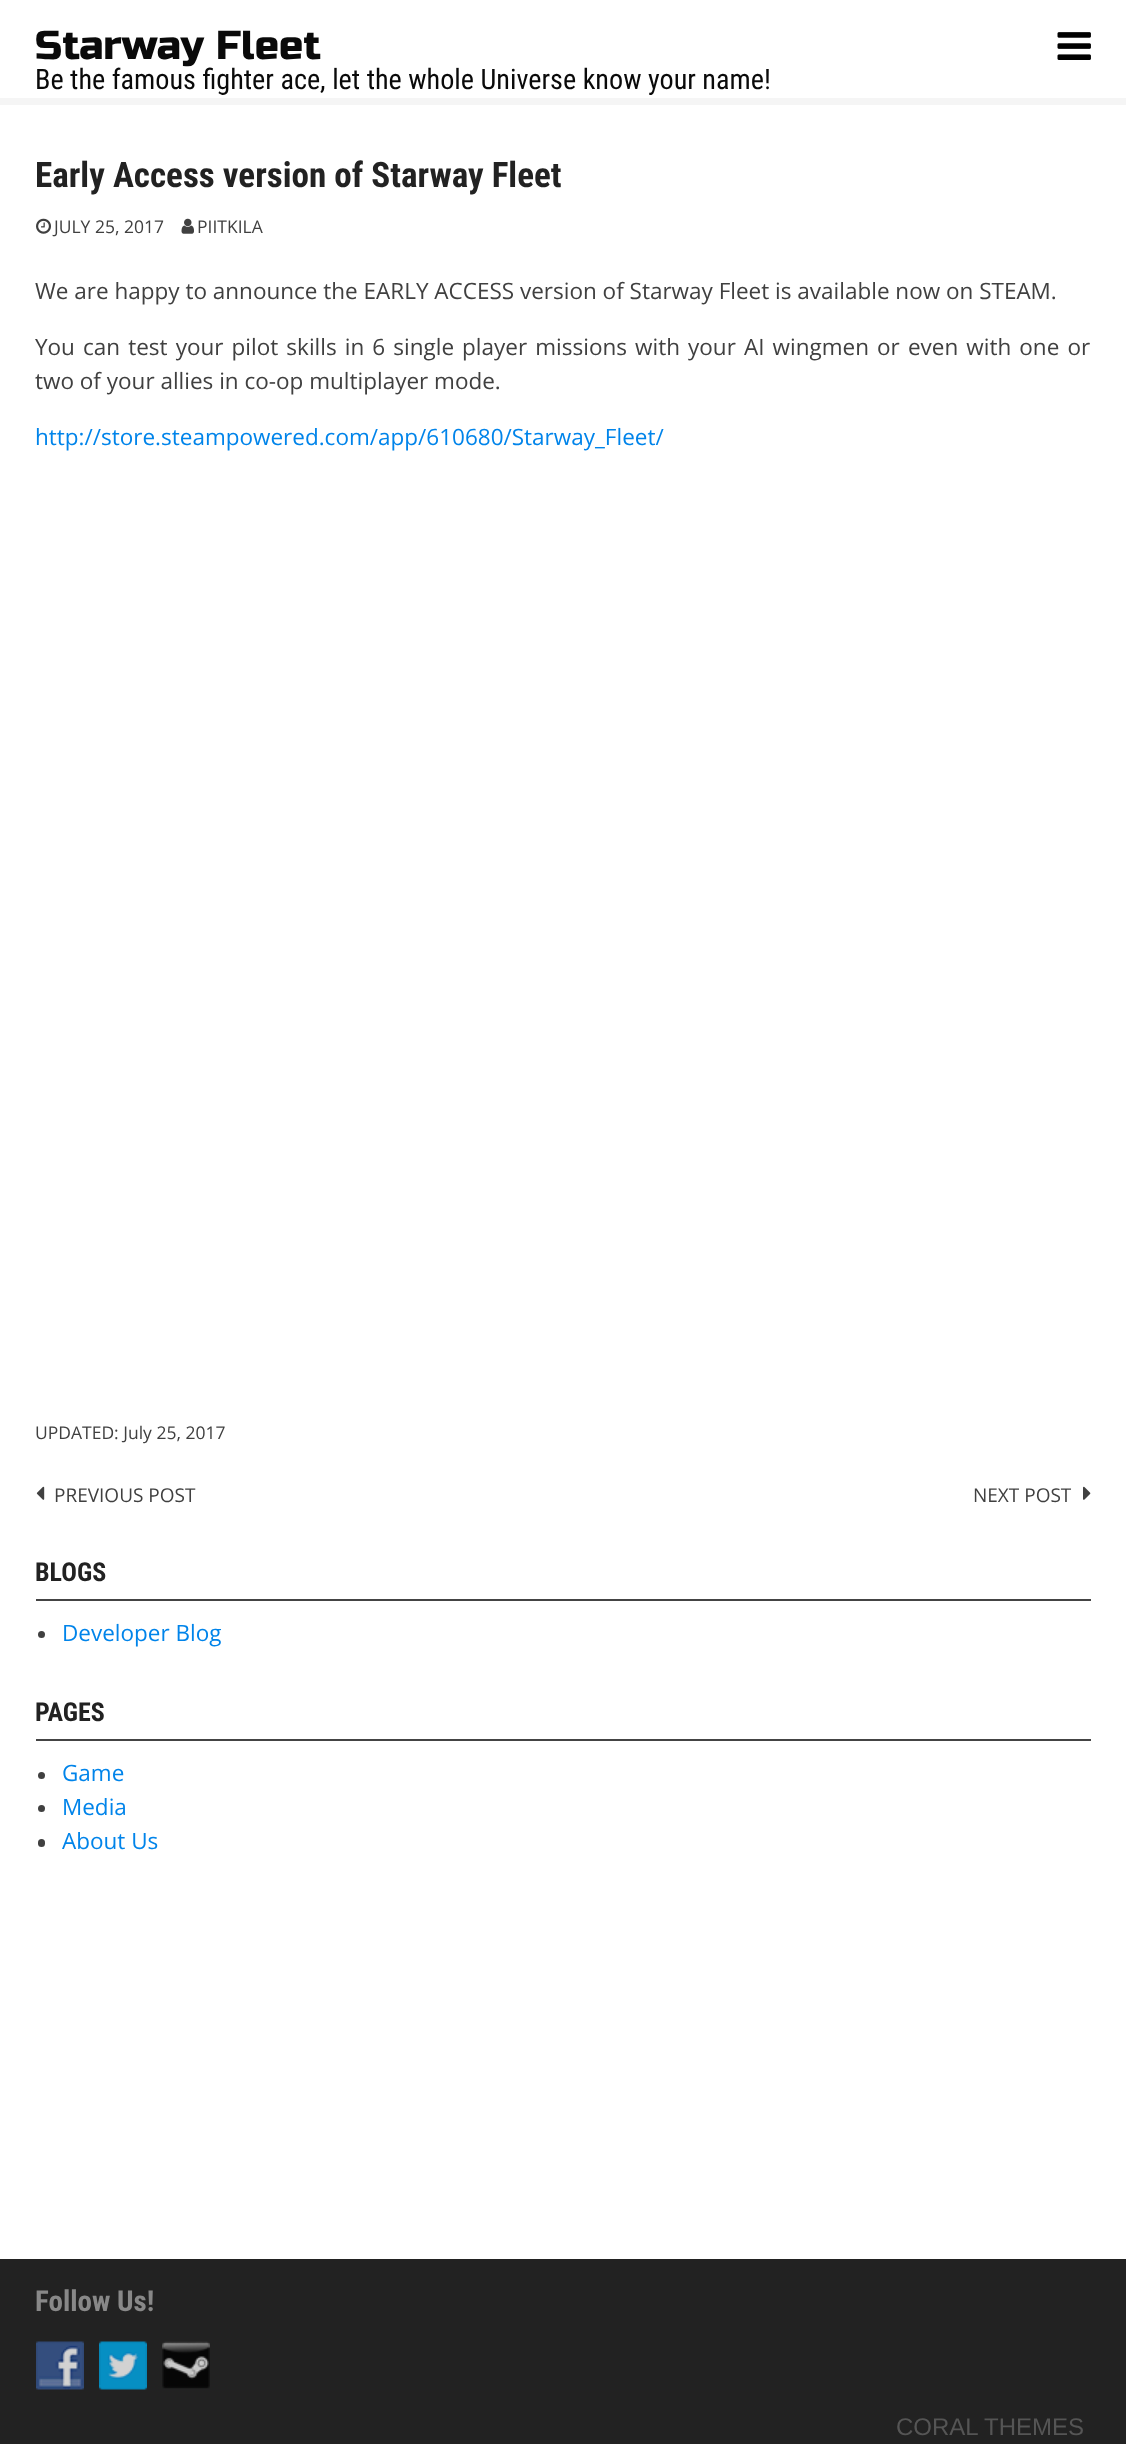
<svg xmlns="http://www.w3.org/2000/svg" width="1126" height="2444">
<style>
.a{font:40.5px Russo One;fill:#0a0a0a}
.b{font:28.2px Roboto Condensed;fill:#0a0a0a}
.c{font:bold 35.1px Roboto Condensed;fill:#222}
.d{font:17.5px Open Sans;fill:#404040}
.e{font:22.5px Open Sans;fill:#404040}
.f{font:22.5px Open Sans;fill:#0084ea}
.g{font:19px Open Sans;fill:#404040}
.h{font:bold 26px Roboto Condensed;fill:#222}
.i{font:bold 29px Roboto Condensed;fill:#888}
.j{font:24px Liberation Sans;fill:#555}
</style>
<rect width="100%" height="100%" fill="#fff"/>
<image href="1.png" x="1057" y="32" width="34" height="28"/>
<path fill="#f5f5f5" d="M0 98h1126v7H0z"/>
<image href="2.png" x="36" y="218" width="15" height="16"/>
<image href="3.png" x="181" y="218" width="13" height="16"/>
<image href="4.png" x="36" y="1486" width="9" height="14"/>
<image href="5.png" x="1083" y="1486" width="8" height="14"/>
<path fill="#444" d="M36 1599h1055v2H36z"/>
<circle fill="#404040" cx="41.5" cy="1634.5" r="3.5"/>
<path fill="#444" d="M36 1739h1055v2H36z"/>
<circle fill="#404040" cx="41.5" cy="1775.5" r="3.5"/>
<circle fill="#404040" cx="41.5" cy="1808.5" r="3.5"/>
<rect fill="#404040" x="38" y="1839" width="7" height="8" rx="3.5"/>
<path fill="#222" d="M0 2259h1126v185H0z"/>
<image href="6.png" x="36" y="2341" width="48" height="49"/>
<image href="7.png" x="99" y="2341" width="48" height="49"/>
<image href="8.png" x="162" y="2341" width="48" height="48"/>
<text class="a" x="35" y="59">Starway Fleet</text>
<text class="b" x="35" y="89">Be the famous fighter ace, let the whole Universe know your name!</text>
<text class="c" x="35" y="187">Early Access version of Starway Fleet</text>
<text class="d" x="54" y="233">JULY 25, 2017</text>
<text class="d" x="197" y="233">PIITKILA</text>
<text class="e" x="35" y="299">We are happy to announce the EARLY ACCESS version of Starway Fleet is available now on STEAM.</text>
<text class="e" x="35" y="355" word-spacing="2.25">You can test your pilot skills in 6 single player missions with your AI wingmen or even with one or</text>
<text class="e" x="35" y="389">two of your allies in co-op multiplayer mode.</text>
<text class="f" x="35" y="445">http://store.steampowered.com/app/610680/Starway_Fleet/</text>
<text class="d" x="35" y="1439">UPDATED: July 25, 2017</text>
<text class="g" x="54" y="1502">PREVIOUS POST</text>
<text class="g" x="973" y="1502">NEXT POST</text>
<text class="h" x="35" y="1581">BLOGS</text>
<text class="f" x="62" y="1641">Developer Blog</text>
<text class="h" x="35" y="1721">PAGES</text>
<text class="f" x="62" y="1781">Game</text>
<text class="f" x="62" y="1815">Media</text>
<text class="f" x="62" y="1849">About Us</text>
<text class="i" x="35" y="2311">Follow Us!</text>
<text class="j" x="896" y="2435">CORAL THEMES</text>
</svg>
